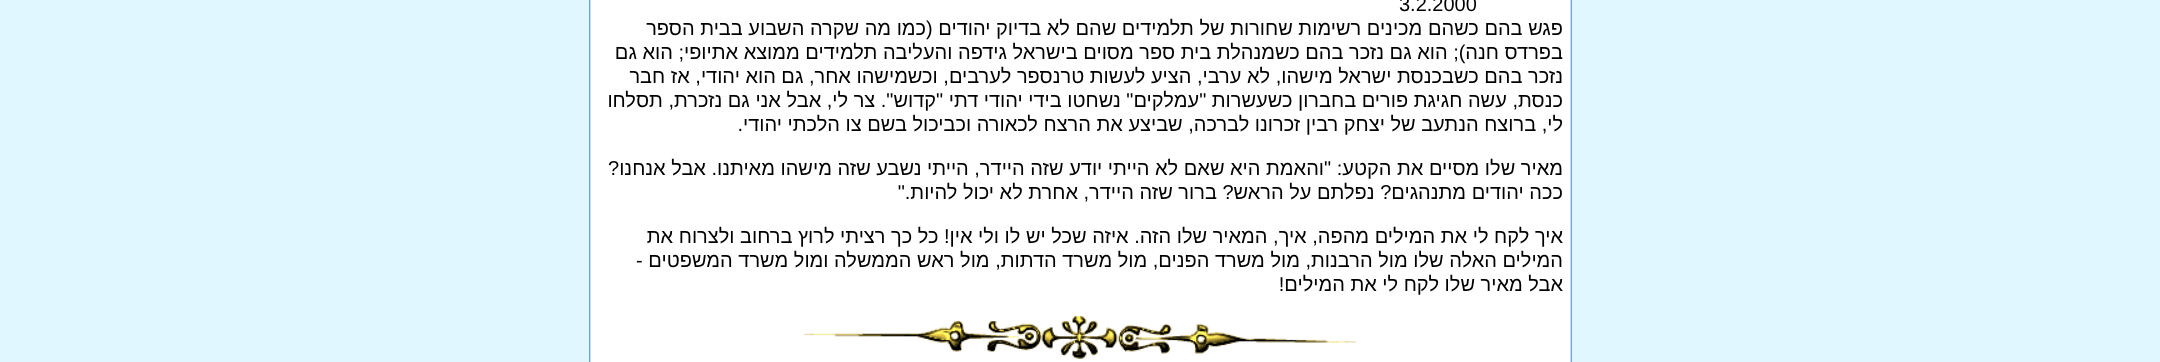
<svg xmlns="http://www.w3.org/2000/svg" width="2160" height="362">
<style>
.a{font:20px Liberation Sans;fill:#000}
.b{font:20px Liberation Sans;direction:rtl;fill:#000}
</style>
<rect width="100%" height="100%" fill="#e0f7ff"/>
<path fill="#70a0e5" d="M1571 0h1v362H1571z"/>
<path fill="#cbdbf2" d="M1570 0h1v362H1570z"/>
<path fill="#fff" d="M591 0h979v362H591z"/>
<image href="1.png" x="803" y="316" width="554" height="43"/>
<path fill="#cbdbf2" d="M590 0h1v362H590z"/>
<path fill="#70a0e5" d="M589 0h1v362H589z"/>
<text class="a" x="1399" y="11">3.2.2000</text>
<text class="b" x="1563" y="35">פגש בהם כשהם מכינים רשימות שחורות של תלמידים שהם לא בדיוק יהודים (כמו מה שקרה השבוע בבית הספר</text>
<text class="b" x="1563" y="59">בפרדס חנה); הוא גם נזכר בהם כשמנהלת בית ספר מסוים בישראל גידפה והעליבה תלמידים ממוצא אתיופי; הוא גם</text>
<text class="b" x="1563" y="83">נזכר בהם כשבכנסת ישראל מישהו, לא ערבי, הציע לעשות טרנספר לערבים, וכשמישהו אחר, גם הוא יהודי, אז חבר</text>
<text class="b" x="1563" y="107">כנסת, עשה חגיגת פורים בחברון כשעשרות "עמלקים" נשחטו בידי יהודי דתי "קדוש". צר לי, אבל אני גם נזכרת, תסלחו</text>
<text class="b" x="1563" y="131">לי, ברוצח הנתעב של יצחק רבין זכרונו לברכה, שביצע את הרצח לכאורה וכביכול בשם צו הלכתי יהודי.</text>
<text class="b" x="1563" y="175">מאיר שלו מסיים את הקטע: "והאמת היא שאם לא הייתי יודע שזה היידר, הייתי נשבע שזה מישהו מאיתנו. אבל אנחנו?</text>
<text class="b" x="1563" y="199">ככה יהודים מתנהגים? נפלתם על הראש? ברור שזה היידר, אחרת לא יכול להיות."</text>
<text class="b" x="1563" y="243">איך לקח לי את המילים מהפה, איך, המאיר שלו הזה. איזה שכל יש לו ולי אין! כל כך רציתי לרוץ ברחוב ולצרוח את</text>
<text class="b" x="1563" y="267">המילים האלה שלו מול הרבנות, מול משרד הפנים, מול משרד הדתות, מול ראש הממשלה ומול משרד המשפטים -</text>
<text class="b" x="1563" y="291">אבל מאיר שלו לקח לי את המילים!</text>
</svg>
